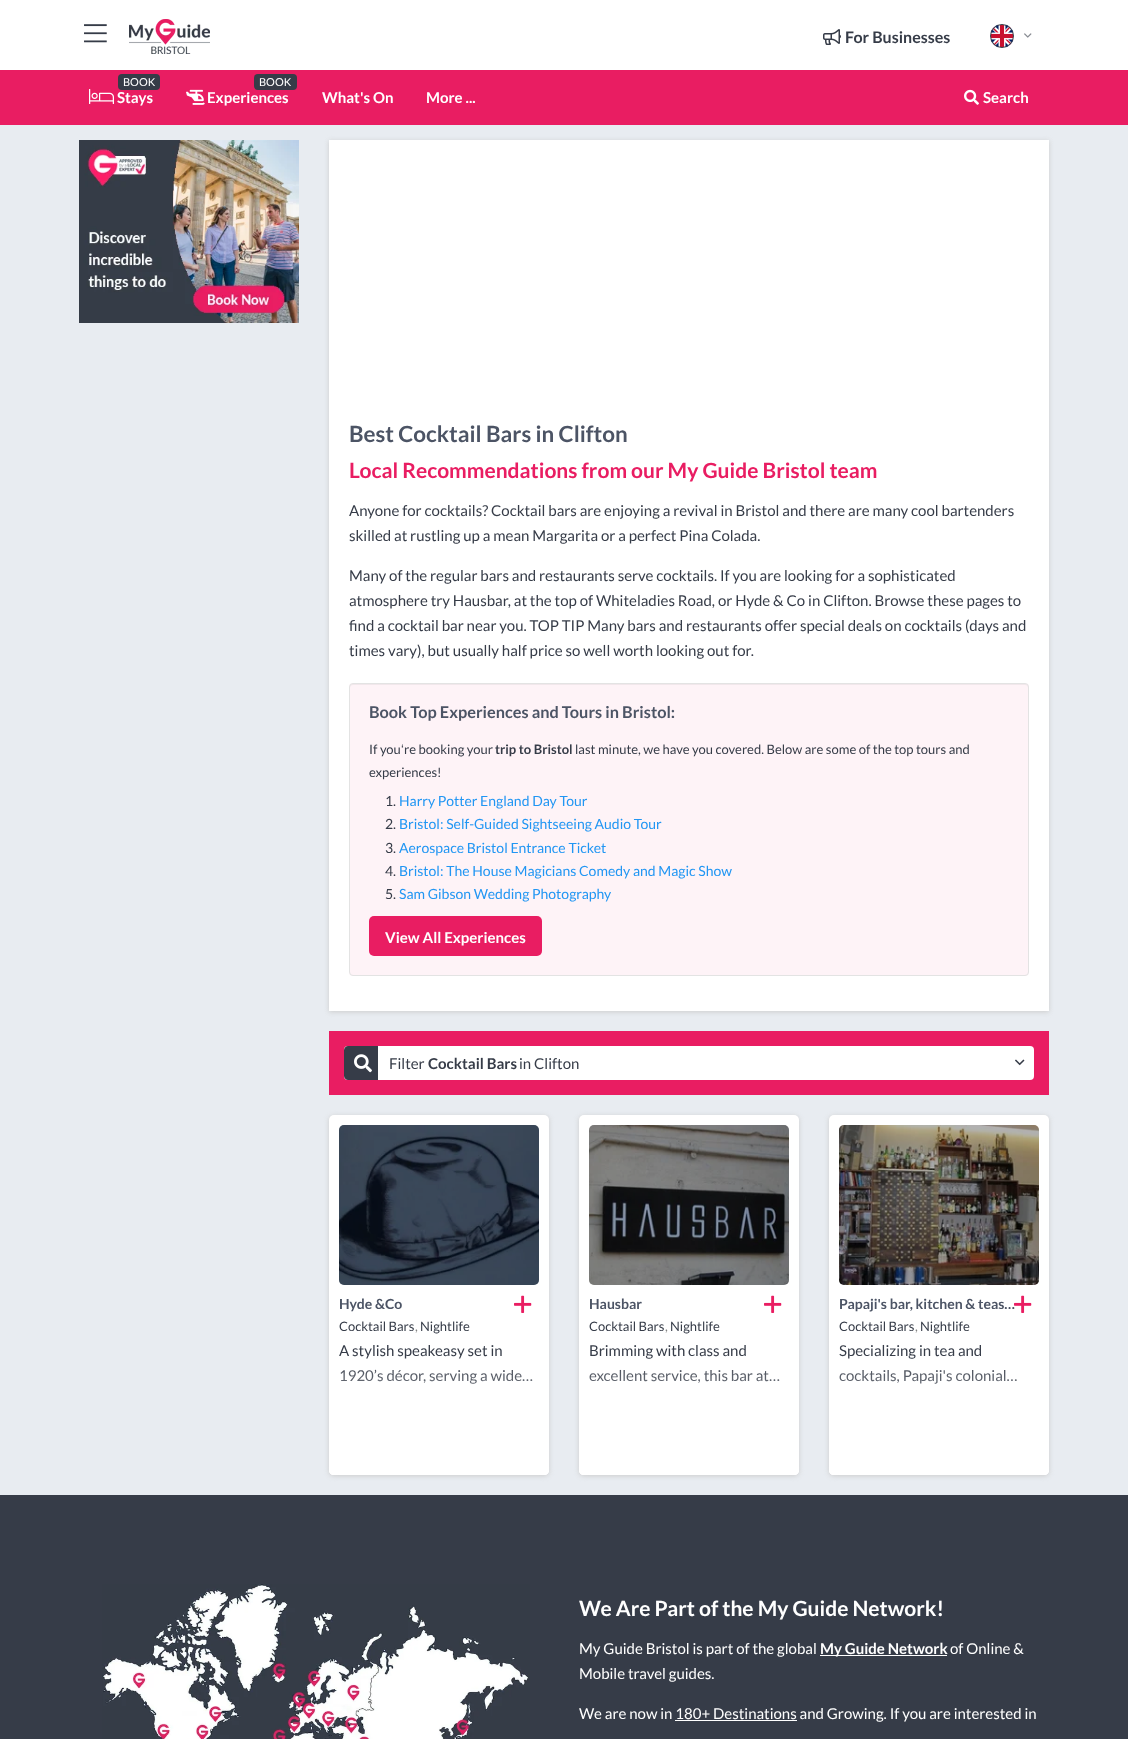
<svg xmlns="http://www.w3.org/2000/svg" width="1128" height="1739">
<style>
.a{font:bold 16px Lato;fill:#363c48}
.b{font:11px Lato;fill:#fff}
.c{font:bold 15px Lato;fill:#fff}
.d{font:bold 22.4px Lato;fill:#4c5465}
.e{font:bold 21px Lato;fill:#e91d62}
.f{font:15px Lato;fill:#363c48}
.g{font:bold 16.3px Lato;fill:#4c5465}
.h{font:13px Lato;fill:#363c48}
.i{font:13px Liberation Sans;fill:#363c48}
.j{font:bold 13px Lato;fill:#363c48}
.k{font:14px Lato;fill:#363c48}
.l{font:14px Lato;fill:#2196f3}
.m{font:bold 15px Lato;fill:#363c48}
.n{font:bold 14px Lato;fill:#4c5465}
.o{font:13px Lato;fill:#838383}
.p{font:bold 21px Lato;fill:#fff}
.q{font:15px Lato;fill:#fff}
</style>
<defs>
<linearGradient id="g1" gradientUnits="userSpaceOnUse" x1="439" y1="1355" x2="439" y2="1475"><stop offset="0" stop-color="#fff" stop-opacity="0"/><stop offset="1" stop-color="#fff"/></linearGradient>
<linearGradient id="g2" gradientUnits="userSpaceOnUse" x1="689" y1="1355" x2="689" y2="1475"><stop offset="0" stop-color="#fff" stop-opacity="0"/><stop offset="1" stop-color="#fff"/></linearGradient>
<linearGradient id="g3" gradientUnits="userSpaceOnUse" x1="939" y1="1355" x2="939" y2="1475"><stop offset="0" stop-color="#fff" stop-opacity="0"/><stop offset="1" stop-color="#fff"/></linearGradient>
</defs>
<rect width="100%" height="100%" fill="#fff"/>
<image href="1.png" x="84" y="24" width="23" height="19"/>
<image href="2.png" x="129" y="19" width="81" height="35"/>
<image href="3.png" x="823" y="29" width="18" height="16"/>
<image href="4.png" x="991" y="25" width="22" height="22"/>
<circle fill="none" stroke="#363c48" cx="1002" cy="36" r="11.5"/>
<image href="5.png" x="1024" y="33" width="8" height="5"/>
<path fill="#e91d62" d="M0 70h1128v55H0z"/>
<rect fill="#363c48" x="118" y="74" width="42" height="16" rx="4"/>
<image href="6.png" x="89" y="89" width="25" height="15"/>
<rect fill="#363c48" x="254" y="74" width="43" height="16" rx="4"/>
<image href="7.png" x="186" y="89" width="19" height="16"/>
<image href="8.png" x="964" y="89" width="15" height="16"/>
<path fill="#e8ecf1" d="M0 125h1128v1370H0z"/>
<image href="9.png" x="79" y="140" width="220" height="183"/>
<path fill="#ccc" filter="blur(2.5px)" d="M329 141h720v871H329z"/>
<path fill="#fff" d="M329 140h720v871H329z"/>
<rect fill="#fef3f7" x="349" y="683" width="680" height="293" rx="4"/>
<path fill="#f1e7eb" d="M353 685h672c2 0 3 1 3 3v-1c0-2-1-3-3-3h-672c-2 0-3 1-3 3v1c0-2 1-3 3-3z"/>
<rect fill="none" stroke="#e3e3e3" x="349.5" y="683.5" width="679" height="292" rx="3.5"/>
<rect fill="#e91d62" x="369" y="916" width="173" height="40" rx="5"/>
<path fill="#e91d62" d="M329 1031h720v64H329z"/>
<rect fill="#fff" x="344" y="1046" width="690" height="34" rx="4"/>
<path fill="#363c48" d="M348 1046h30v34h-30c-2 0-4-2-4-4v-26c0-2 2-4 4-4z"/>
<image href="10.png" x="354" y="1054" width="18" height="19"/>
<image href="11.png" x="1015" y="1059" width="10" height="7"/>
<rect fill="#ccc" filter="blur(2.5px)" x="329" y="1116" width="220" height="360" rx="5"/>
<rect fill="#fff" x="329" y="1115" width="220" height="360" rx="5"/>
<image href="12.png" x="514" y="1295" width="18" height="18"/>
<image href="13.png" x="339" y="1125" width="200" height="160"/>
<rect fill="#0000004d" x="339" y="1125" width="200" height="160" rx="5"/>
<rect fill="#ccc" filter="blur(2.5px)" x="579" y="1116" width="220" height="360" rx="5"/>
<rect fill="#fff" x="579" y="1115" width="220" height="360" rx="5"/>
<image href="12.png" x="764" y="1295" width="18" height="18"/>
<image href="14.png" x="589" y="1125" width="200" height="160"/>
<rect fill="#0000004d" x="589" y="1125" width="200" height="160" rx="5"/>
<rect fill="#ccc" filter="blur(2.5px)" x="829" y="1116" width="220" height="360" rx="5"/>
<rect fill="#fff" x="829" y="1115" width="220" height="360" rx="5"/>
<image href="15.png" x="839" y="1125" width="200" height="160"/>
<rect fill="#0000004d" x="839" y="1125" width="200" height="160" rx="5"/>
<path fill="#363c48" d="M0 1495h1128v244H0z"/>
<image href="17.png" x="102" y="1584" width="428" height="155"/>
<path fill="#fff" d="M820 1655h127v1H820z"/>
<path fill="#fff" d="M675 1720h122v1H675z"/>
<text class="a" x="845" y="43">For Businesses</text>
<text class="b" x="123" y="86">BOOK</text>
<text class="c" x="117" y="103">Stays</text>
<text class="b" x="259" y="86">BOOK</text>
<text class="c" x="207" y="103">Experiences</text>
<text class="c" x="322" y="103">What's On</text>
<text class="c" x="426" y="103">More ...</text>
<text class="c" x="983" y="103">Search</text>
<text class="d" x="349" y="442">Best Cocktail Bars in Clifton</text>
<text class="e" x="349" y="478">Local Recommendations from our My Guide Bristol team</text>
<text class="f" x="349" y="516">Anyone for cocktails? Cocktail bars are enjoying a revival in Bristol and there are many cool bartenders</text>
<text class="f" x="349" y="541">skilled at rustling up a mean Margarita or a perfect Pina Colada.</text>
<text class="f" x="349" y="581">Many of the regular bars and restaurants serve cocktails. If you are looking for a sophisticated</text>
<text class="f" x="349" y="606">atmosphere try Hausbar, at the top of Whiteladies Road, or Hyde &amp; Co in Clifton. Browse these pages to</text>
<text class="f" x="349" y="631">find a cocktail bar near you. TOP TIP Many bars and restaurants offer special deals on cocktails (days and</text>
<text class="f" x="349" y="656">times vary), but usually half price so well worth looking out for.</text>
<text class="g" x="369" y="718">Book Top Experiences and Tours in Bristol:</text>
<text class="h" x="369" y="754">If you</text>
<text class="i" x="401" y="754">ʻ</text>
<text class="h" x="404" y="754">re booking your</text>
<text class="j" x="495" y="754">trip to Bristol</text>
<text class="h" x="575" y="754">last minute, we have you covered. Below are some of the top tours and</text>
<text class="h" x="369" y="777">experiences!</text>
<text class="k" x="385" y="806">1.</text>
<text class="l" x="399" y="806">Harry Potter England Day Tour</text>
<text class="k" x="385" y="829">2.</text>
<text class="l" x="399" y="829">Bristol: Self-Guided Sightseeing Audio Tour</text>
<text class="k" x="385" y="853">3.</text>
<text class="l" x="399" y="853">Aerospace Bristol Entrance Ticket</text>
<text class="k" x="385" y="876">4.</text>
<text class="l" x="399" y="876">Bristol: The House Magicians Comedy and Magic Show</text>
<text class="k" x="385" y="899">5.</text>
<text class="l" x="399" y="899">Sam Gibson Wedding Photography</text>
<text class="c" x="385" y="943">View All Experiences</text>
<text class="f" x="389" y="1069">Filter</text>
<text class="m" x="428" y="1069">Cocktail Bars</text>
<text class="f" x="519" y="1069">in Clifton</text>
<text class="n" x="339" y="1309">Hyde &amp;Co</text>
<text class="h" x="339" y="1331">Cocktail Bars</text>
<text class="o" x="415" y="1331">,</text>
<text class="h" x="420" y="1331">Nightlife</text>
<text class="f" x="339" y="1356">A stylish speakeasy set in</text>
<text class="f" x="339" y="1381">1920’s décor, serving a wide…</text>
<path fill="url(#g1)" d="M329 1355h220v115c0 3-2 5-5 5h-210c-3 0-5-2-5-5z"/>
<path fill="#fff" d="M329 1420h220v50c0 3-2 5-5 5h-210c-3 0-5-2-5-5z"/>
<text class="n" x="589" y="1309">Hausbar</text>
<text class="h" x="589" y="1331">Cocktail Bars</text>
<text class="o" x="665" y="1331">,</text>
<text class="h" x="670" y="1331">Nightlife</text>
<text class="f" x="589" y="1356">Brimming with class and</text>
<text class="f" x="589" y="1381">excellent service, this bar at…</text>
<path fill="url(#g2)" d="M579 1355h220v115c0 3-2 5-5 5h-210c-3 0-5-2-5-5z"/>
<path fill="#fff" d="M579 1420h220v50c0 3-2 5-5 5h-210c-3 0-5-2-5-5z"/>
<text class="n" x="839" y="1309">Papaji's bar, kitchen &amp; teas…</text>
<text class="h" x="839" y="1331">Cocktail Bars</text>
<text class="o" x="915" y="1331">,</text>
<text class="h" x="920" y="1331">Nightlife</text>
<text class="f" x="839" y="1356">Specializing in tea and</text>
<text class="f" x="839" y="1381">cocktails, Papaji's colonial…</text>
<path fill="url(#g3)" d="M829 1355h220v115c0 3-2 5-5 5h-210c-3 0-5-2-5-5z"/>
<image href="16.png" x="1014" y="1295" width="18" height="18"/>
<path fill="#fff" d="M829 1420h220v50c0 3-2 5-5 5h-210c-3 0-5-2-5-5z"/>
<text class="p" x="579" y="1616">We Are Part of the My Guide Network!</text>
<text class="q" x="579" y="1654">My Guide Bristol is part of the global</text>
<text class="c" x="820" y="1654">My Guide Network</text>
<text class="q" x="950" y="1654">of Online &amp;</text>
<text class="q" x="579" y="1679">Mobile travel guides.</text>
<text class="q" x="579" y="1719">We are now in 180+ Destinations and Growing. If you are interested in</text>
</svg>
